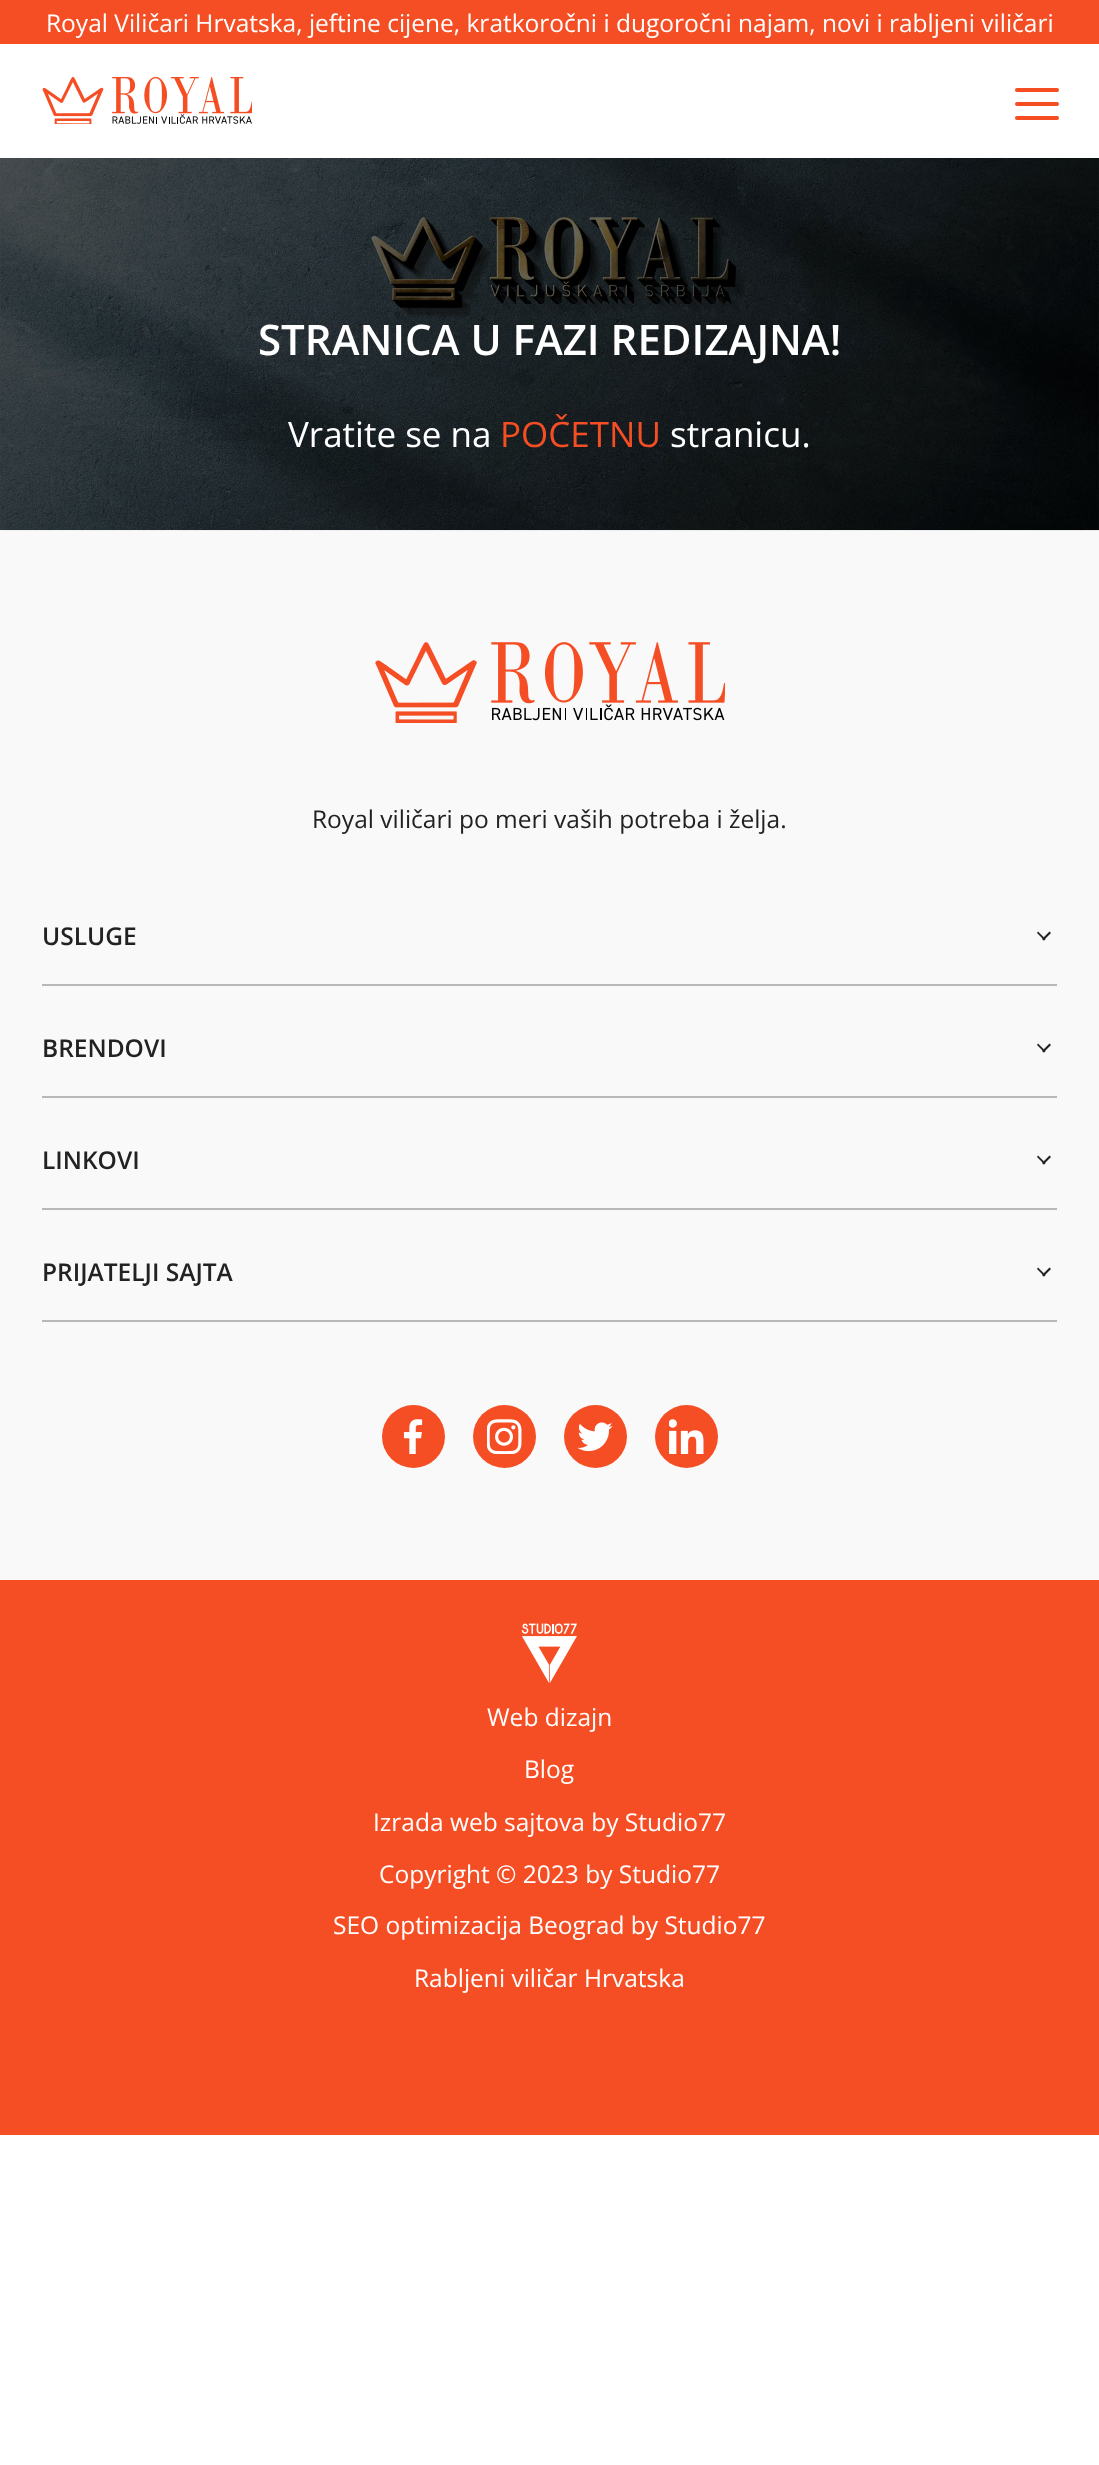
<svg xmlns="http://www.w3.org/2000/svg" width="1099" height="2465">
<style>
.a{font:24.5px Open Sans;fill:#fff}
.b{font:600 42px Open Sans;fill:#fff}
.c{font:35px Open Sans;fill:#fff}
.d{font:35px Open Sans;fill:#f54e24}
.e{font:24.5px Open Sans;fill:#222}
.f{font:600 24.5px Open Sans;fill:#222}
</style>
<rect width="100%" height="100%" fill="#fff"/>
<path fill="#f54e24" d="M0 0h1099v44H0z"/>
<image href="1.png" x="42" y="77" width="210" height="47"/>
<rect fill="#f54e24" x="1015" y="102" width="44" height="4" rx="2"/>
<rect fill="#f54e24" x="1015" y="88" width="44" height="4" rx="2"/>
<rect fill="#f54e24" x="1015" y="116" width="44" height="4" rx="2"/>
<path fill="#f9f9f9" d="M0 530h1099v1050H0z"/>
<image href="2.png" x="0" y="158" width="1099" height="373"/>
<image href="3.png" x="375" y="642" width="350" height="81"/>
<path fill="#b7b7b7" d="M42 984h1015v2H42z"/>
<path fill="#222" d="M1038 931.5l7.5 7.5l-1 1.5l-7.5-7.5z"/>
<path fill="#222" d="M1042 939l7.5-7.5l1.5 1.5l-7.5 7.5z"/>
<path fill="#b7b7b7" d="M42 1096h1015v2H42z"/>
<path fill="#222" d="M1038 1043.5l7.5 7.5l-1 1.5l-7.5-7.5z"/>
<path fill="#222" d="M1042 1051l7.5-7.5l1.5 1.5l-7.5 7.5z"/>
<path fill="#b7b7b7" d="M42 1208h1015v2H42z"/>
<path fill="#222" d="M1038 1155.5l7.5 7.5l-1 1.5l-7.5-7.5z"/>
<path fill="#222" d="M1042 1163l7.5-7.5l1.5 1.5l-7.5 7.5z"/>
<path fill="#b7b7b7" d="M42 1320h1015v2H42z"/>
<path fill="#222" d="M1038 1267.5l7.5 7.5l-1 1.5l-7.5-7.5z"/>
<path fill="#222" d="M1042 1275l7.5-7.5l1.5 1.5l-7.5 7.5z"/>
<circle fill="#f54e24" cx="413.5" cy="1436.5" r="31.5"/>
<image href="4.png" x="403" y="1419" width="20" height="35"/>
<circle fill="#f54e24" cx="504.5" cy="1436.5" r="31.5"/>
<image href="5.png" x="487" y="1419" width="35" height="35"/>
<circle fill="#f54e24" cx="595.5" cy="1436.5" r="31.5"/>
<image href="6.png" x="578" y="1422" width="35" height="30"/>
<circle fill="#f54e24" cx="686.5" cy="1436.5" r="31.5"/>
<image href="7.png" x="669" y="1419" width="35" height="35"/>
<path fill="#f54e24" d="M0 1580h1099v555H0z"/>
<image href="8.png" x="521" y="1623" width="56" height="60"/>
<text class="a" x="46" y="32">Royal Viličari Hrvatska, jeftine cijene, kratkoročni i dugoročni najam, novi i rabljeni viličari</text>
<text class="b" x="258" y="355">STRANICA U FAZI REDIZAJNA!</text>
<text class="c" x="288" y="447">Vratite se na</text>
<text class="d" x="500" y="447">POČETNU</text>
<text class="c" x="670" y="447">stranicu.</text>
<text class="e" x="312" y="828">Royal viličari po meri vaših potreba i želja.</text>
<text class="f" x="42" y="945">USLUGE</text>
<text class="f" x="42" y="1057">BRENDOVI</text>
<text class="f" x="42" y="1169">LINKOVI</text>
<text class="f" x="42" y="1281">PRIJATELJI SAJTA</text>
<text class="a" x="487" y="1726">Web dizajn</text>
<text class="a" x="524" y="1778">Blog</text>
<text class="a" x="373" y="1831">Izrada web sajtova by Studio77</text>
<text class="a" x="379" y="1883">Copyright © 2023 by Studio77</text>
<text class="a" x="333" y="1934">SEO optimizacija Beograd by Studio77</text>
<text class="a" x="414" y="1987">Rabljeni viličar Hrvatska</text>
</svg>
